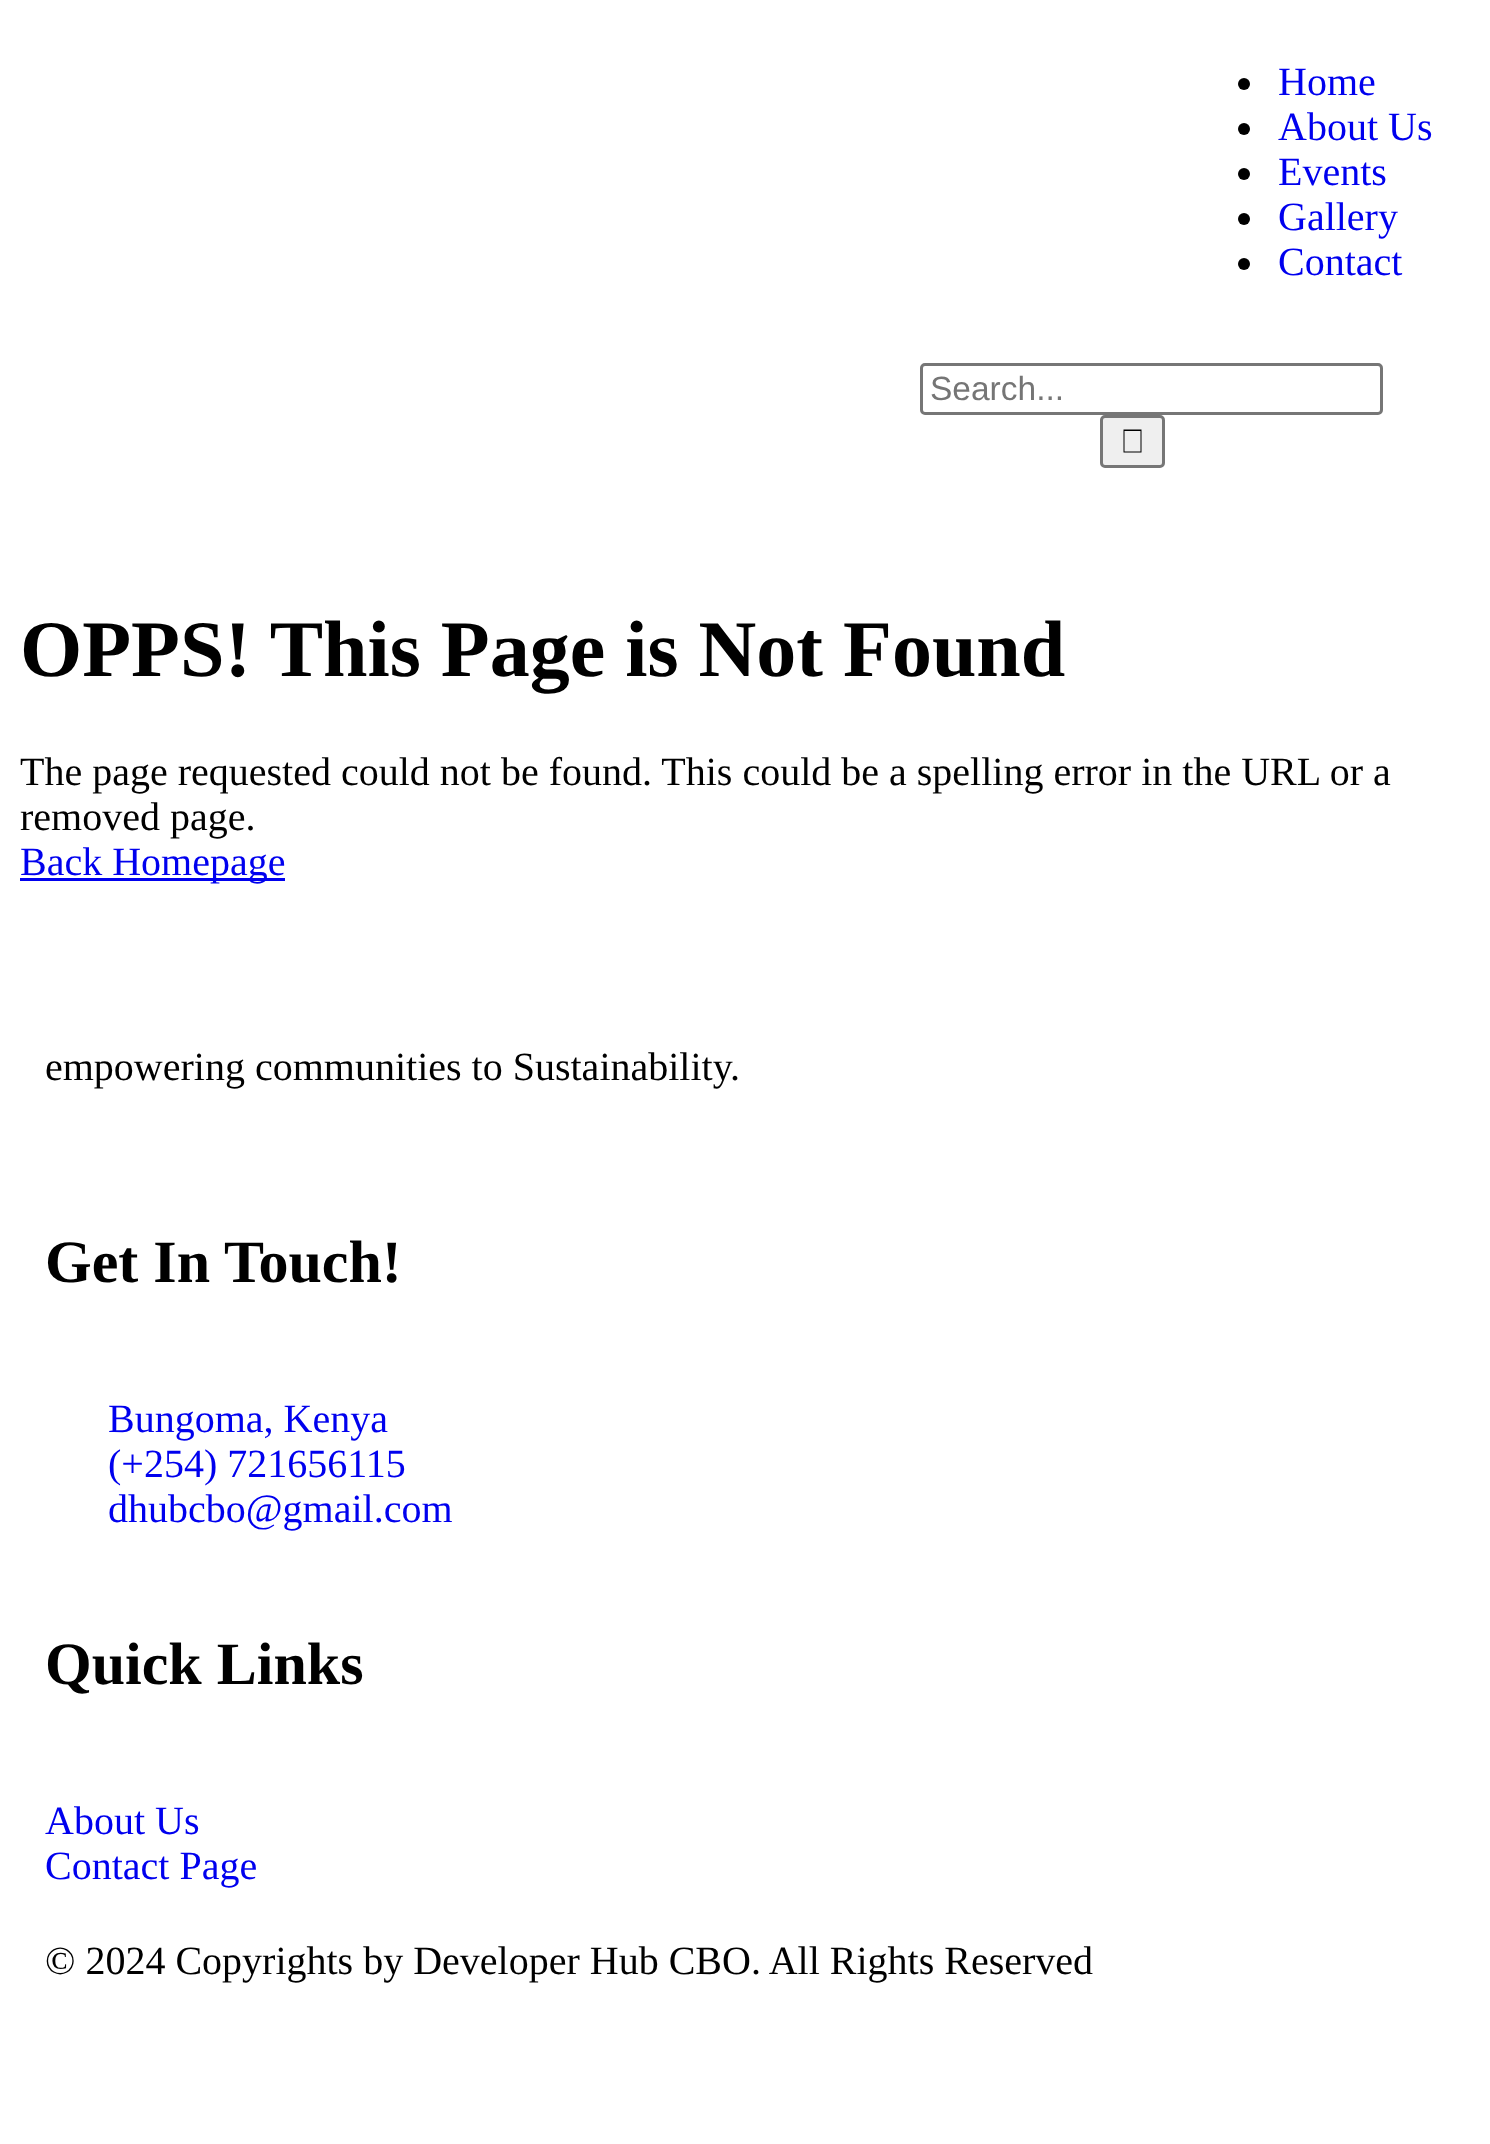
<svg xmlns="http://www.w3.org/2000/svg" width="1490" height="2144">
<style>
.a{font:40px Liberation Serif;fill:#00e}
.b{font:33.5px Liberation Sans;fill:#757575}
.c{font:bold 80px Liberation Serif;fill:#000}
.d{font:40px Liberation Serif;fill:#000}
.e{font:bold 60px Liberation Serif;fill:#000}
</style>
<rect width="100%" height="100%" fill="#fff"/>
<circle fill="#000" cx="1244" cy="84" r="6"/>
<circle fill="#000" cx="1244" cy="129" r="6"/>
<circle fill="#000" cx="1244" cy="174" r="6"/>
<circle fill="#000" cx="1244" cy="219" r="6"/>
<circle fill="#000" cx="1244" cy="264" r="6"/>
<rect fill="none" stroke="#767676" stroke-width="3" x="921.5" y="364.5" width="460" height="49" rx="3.5"/>
<rect fill="#efefef" stroke="#767676" stroke-width="3" x="1101.5" y="416.5" width="62" height="50" rx="3.5"/>
<path fill="#000" d="M1123.5 429.5h18v23h-18zm1 1.5v20.5h16v-20.5z"/>
<path fill="#00e" d="M20 878h265v3H20z"/>
<text class="a" x="1278" y="95">Home</text>
<text class="a" x="1278" y="140">About Us</text>
<text class="a" x="1278" y="185">Events</text>
<text class="a" x="1278" y="230">Gallery</text>
<text class="a" x="1278" y="275">Contact</text>
<text class="b" x="930" y="400">Search...</text>
<text class="c" x="20" y="676">OPPS! This Page is Not Found</text>
<text class="d" x="20" y="785">The page requested could not be found. This could be a spelling error in the URL or a</text>
<text class="d" x="20" y="830">removed page.</text>
<text class="a" x="20" y="875">Back Homepage</text>
<text class="d" x="45" y="1080">empowering communities to Sustainability.</text>
<text class="e" x="45" y="1282">Get In Touch!</text>
<text class="a" x="108" y="1432">Bungoma, Kenya</text>
<text class="a" x="108" y="1477">(+254) 721656115</text>
<text class="a" x="108" y="1522">dhubcbo@gmail.com</text>
<text class="e" x="45" y="1684">Quick Links</text>
<text class="a" x="45" y="1834">About Us</text>
<text class="a" x="45" y="1879">Contact Page</text>
<text class="d" x="45" y="1974">© 2024 Copyrights by Developer Hub CBO. All Rights Reserved</text>
</svg>
